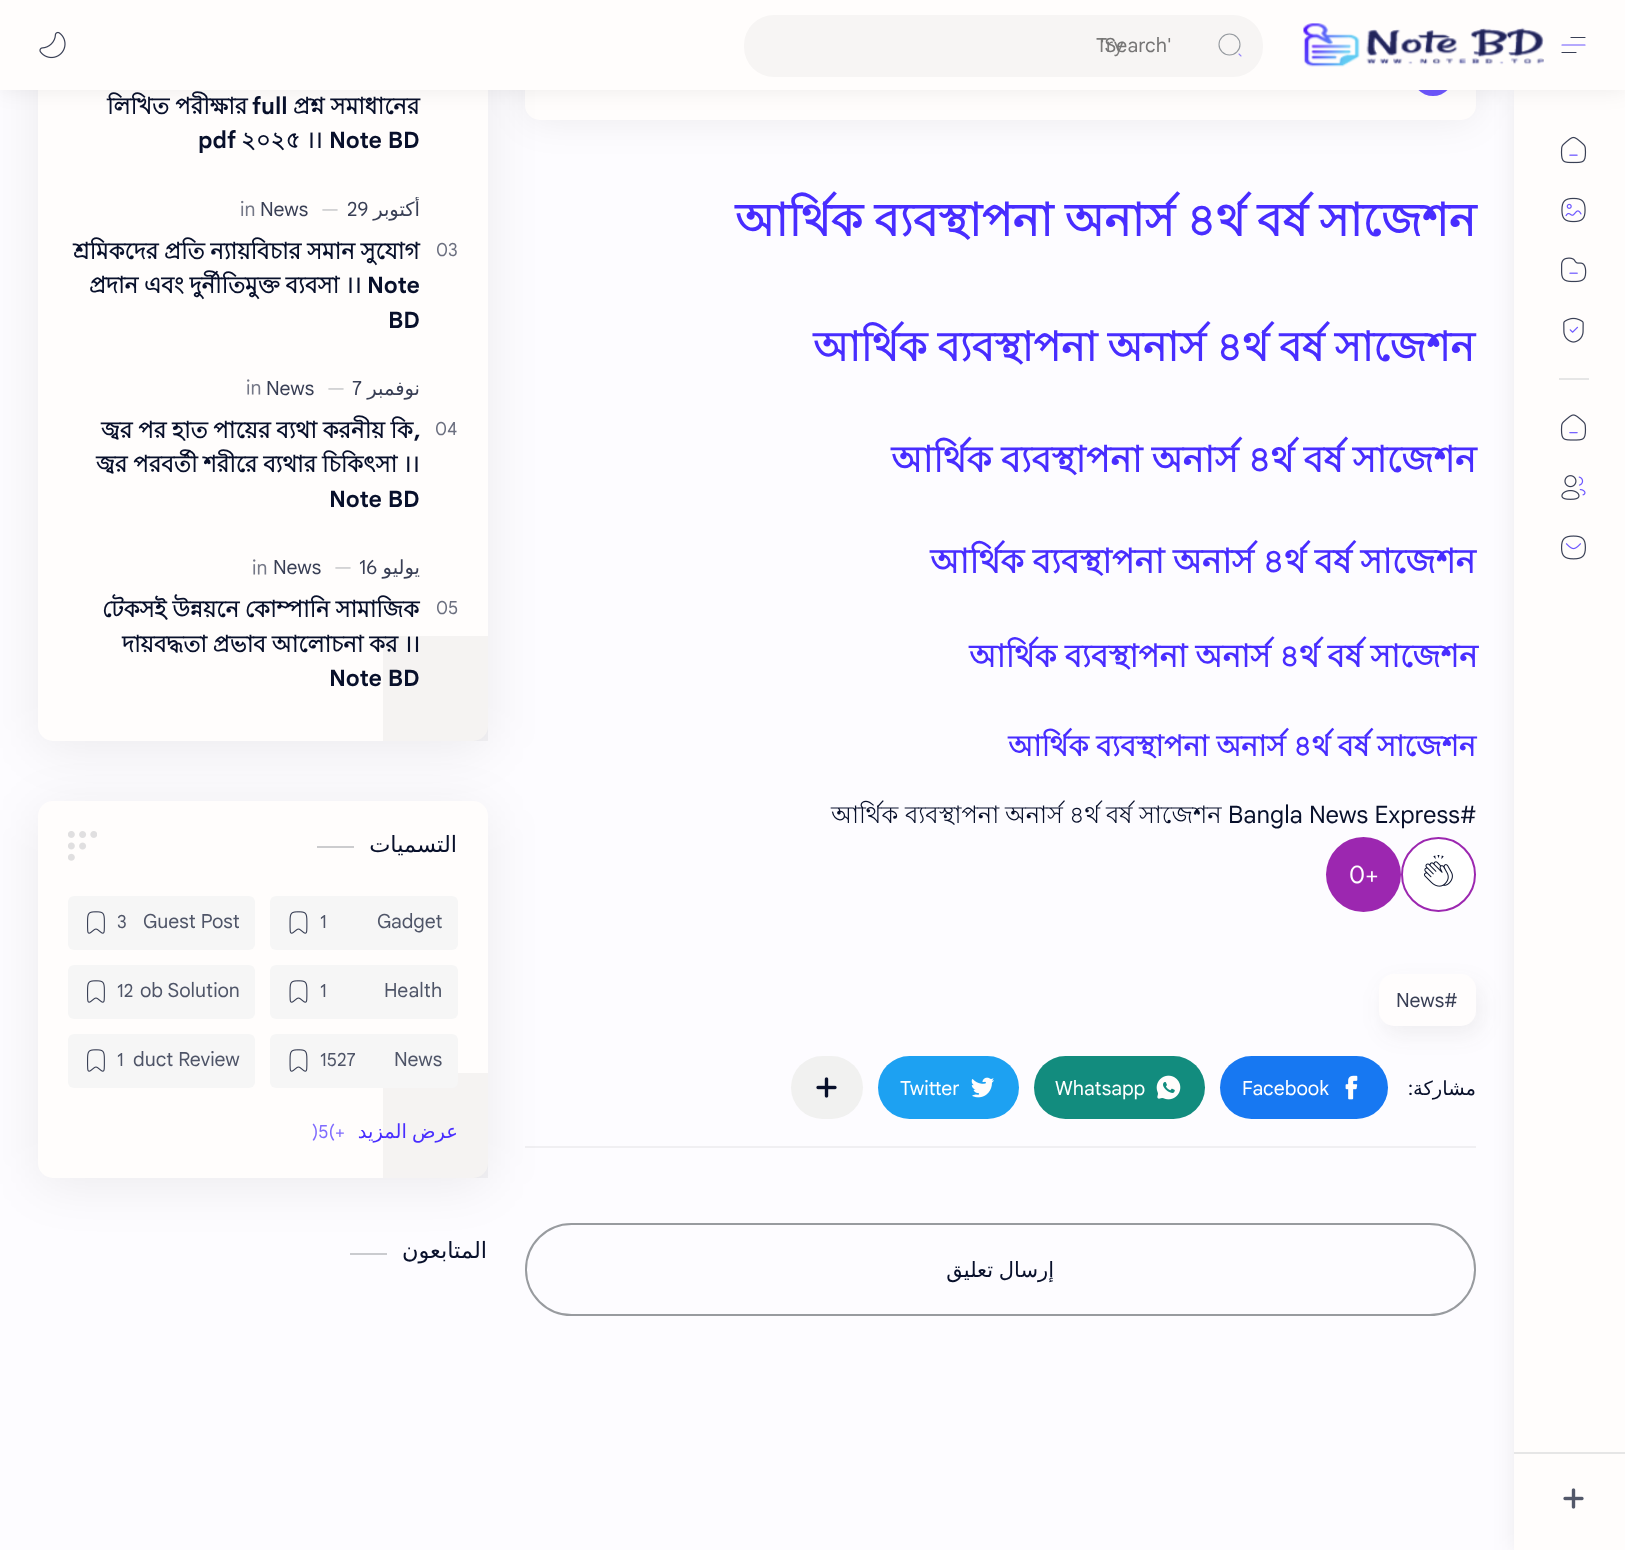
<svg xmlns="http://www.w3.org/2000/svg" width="1625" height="1550">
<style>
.a{font:19.5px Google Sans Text;fill:#7c7b7a}
.b{font:19.5px Google Sans Text;fill:#767575}
.c{font:bold 22.75px Lohit Bengali;fill:#08102b}
.d{font:bold 22.75px Google Sans Text;fill:#08102b}
.e{font:19.5px Google Sans Text;fill:#393f55}
.f{font:19.5px Google Sans Text;fill:#c5c6c8}
.g{font:19.5px DejaVu Sans;direction:rtl;fill:#393f55}
.h{font:18px Google Sans Text;fill:#6b6f7f}
.i{font:22.5px DejaVu Sans;direction:rtl;fill:#08102b}
.j{font:18px Google Sans Text;fill:#4f5568}
.k{font:19.5px Google Sans Text;fill:#4f5568}
.l{font:18px Google Sans Text;fill:#7f6bfe}
.m{font:19.5px DejaVu Sans;direction:rtl;fill:#482dff}
.n{font:bold 45.6px Lohit Bengali;fill:#482dff}
.o{font:bold 40.75px Lohit Bengali;fill:#482dff}
.p{font:bold 36px Lohit Bengali;fill:#482dff}
.q{font:bold 33.6px Lohit Bengali;fill:#482dff}
.r{font:bold 31.25px Lohit Bengali;fill:#482dff}
.s{font:bold 28.75px Lohit Bengali;fill:#482dff}
.t{font:24px Lohit Bengali;fill:#08102b}
.u{font:24px Google Sans Text;fill:#08102b}
.v{font:24px Google Sans Text;fill:#fff}
.w{font:19.5px Google Sans Text;fill:#fff}
.x{font:19.5px Google Sans Text;direction:rtl;fill:#08102b}
.y{font:19.5px DejaVu Sans;direction:rtl;fill:#08102b}
.z{font:21px DejaVu Sans;direction:rtl;fill:#08102b}
</style>
<defs>
<clipPath id="clip1"><path d="M347 197h73v27H347z"/></clipPath>
</defs>
<rect width="100%" height="100%" fill="#fdfcff"/>
<rect fill="#00000012" filter="blur(19px)" x="525" y="30" width="951" height="90" rx="15"/>
<rect fill="#fffdfc" x="525" y="30" width="951" height="90" rx="15"/>
<rect fill="#00000012" filter="blur(26px)" x="38" y="-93" width="450" height="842" rx="15"/>
<rect fill="#fffdfc" x="38" y="-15" width="450" height="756" rx="15"/>
<circle fill="#6d57fe" cx="1433" cy="75" r="21"/>
<rect fill="#33323312" filter="blur(11px)" x="1383" y="983" width="98" height="52" rx="15"/>
<path fill="#00000012" filter="blur(11px)" d="M1514 90h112v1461H1514z"/>
<path fill="#fffdfc" d="M1514 90h111v1460H1514z"/>
<path fill="#00000012" filter="blur(11px)" d="M0 0h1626v90H0z"/>
<path fill="#fffdfc" d="M0 0h1625v90H0z"/>
<image href="1.png" x="39" y="31" width="27" height="28"/>
<rect fill="#f7f5f4" x="744" y="15" width="519" height="62" rx="30"/>
<circle fill="none" stroke="#959a9f" stroke-width="1.1" cx="1229.5" cy="44.5" r="10.5"/>
<path fill="none" stroke="#9585fa" stroke-width="1.1" stroke-linecap="round" stroke-linejoin="round" d="M1241 56l-2-2"/>
<image href="2.png" x="1303" y="23" width="241" height="44"/>
<path fill="none" stroke="#393f55" stroke-width="1.2" stroke-linecap="round" stroke-linejoin="round" d="M1585 37.5h-14m5 15h-14"/>
<path fill="none" stroke="#6d57fe" stroke-width="1.2" stroke-linecap="round" stroke-linejoin="round" d="M1585 45h-23"/>
<image href="3.png" x="241" y="200" width="14" height="16"/>
<image href="4.png" x="247" y="379" width="14" height="16"/>
<image href="4.png" x="253" y="559" width="14" height="16"/>
<path fill="#0000000a" d="M383 636h105v105H383z"/>
<path fill="#f0eff2" d="M525 1146h951v2H525z"/>
<rect fill="none" stroke="#989b9f" stroke-width="2" x="526" y="1224" width="949" height="91" rx="45.5"/>
<rect fill="#00000012" filter="blur(26px)" x="38" y="809" width="450" height="376" rx="15"/>
<rect fill="#fffdfc" x="38" y="801" width="450" height="377" rx="15"/>
<image href="5.png" x="68" y="831" width="29" height="30"/>
<path fill="#ccccce" d="M317 846h37v2H317z"/>
<rect fill="#f6f6f6" x="68" y="896" width="187" height="54" rx="6"/>
<image href="6.png" x="87" y="911" width="18" height="23"/>
<rect fill="#f6f6f6" x="270" y="896" width="188" height="54" rx="6"/>
<image href="7.png" x="289" y="911" width="19" height="23"/>
<rect fill="#f6f6f6" x="68" y="965" width="187" height="54" rx="6"/>
<image href="6.png" x="87" y="980" width="18" height="23"/>
<rect fill="#f6f6f6" x="270" y="965" width="188" height="54" rx="6"/>
<image href="7.png" x="289" y="980" width="19" height="23"/>
<rect fill="#f6f6f6" x="68" y="1034" width="187" height="54" rx="6"/>
<image href="6.png" x="87" y="1049" width="18" height="23"/>
<path fill="#0000000a" d="M383 1073h105v105H383z"/>
<rect fill="#f6f6f6" x="270" y="1034" width="188" height="54" rx="6"/>
<image href="7.png" x="289" y="1049" width="19" height="23"/>
<path fill="#cacbcf" d="M350 1253h37v2H350z"/>
<circle fill="#9c27b0" cx="1363.5" cy="874.5" r="37.5"/>
<circle fill="#fff" stroke="#9c27b0" stroke-width="2" cx="1438.5" cy="874.5" r="36.5"/>
<image href="8.png" x="1424" y="855" width="29" height="32"/>
<rect fill="#fffdfd" x="1379" y="974" width="97" height="52" rx="15"/>
<rect fill="#f1f1f0" x="791" y="1056" width="72" height="63" rx="31.5"/>
<image href="9.png" x="816" y="1077" width="21" height="21"/>
<rect fill="#1da1f2" x="878" y="1056" width="141" height="63" rx="31.5"/>
<image href="10.png" x="971" y="1077" width="23" height="21"/>
<rect fill="#128c7e" x="1034" y="1056" width="171" height="63" rx="31.5"/>
<image href="11.png" x="1156" y="1075" width="25" height="25"/>
<rect fill="#1778f2" x="1220" y="1056" width="168" height="63" rx="31.5"/>
<image href="12.png" x="1345" y="1075" width="13" height="25"/>
<image href="13.png" x="1560" y="136" width="27" height="28"/>
<image href="14.png" x="1561" y="197" width="25" height="26"/>
<image href="15.png" x="1561" y="257" width="26" height="26"/>
<image href="16.png" x="1563" y="317" width="21" height="26"/>
<path fill="#e6e6e6" d="M1559 378h30v2H1559z"/>
<image href="17.png" x="1560" y="414" width="27" height="27"/>
<image href="18.png" x="1561" y="475" width="25" height="25"/>
<image href="19.png" x="1561" y="535" width="25" height="25"/>
<path fill="#e6e6e6" d="M1514 1452h111v2H1514z"/>
<image href="20.png" x="1563" y="1488" width="21" height="21"/>
<text class="a" x="1096" y="52">Try</text>
<text class="b" x="1100" y="52">'Search'</text>
<text class="c" x="107" y="114">লিখিত পরীক্ষার</text>
<text class="d" x="252" y="114">full</text>
<text class="c" x="293" y="114">প্রশ্ন সমাধানের</text>
<text class="d" x="198" y="148">pdf</text>
<text class="c" x="241" y="148" word-spacing="-0.5">২০২৫ ।।</text>
<text class="d" x="329" y="148">Note BD</text>
<text class="e" x="260" y="216">News</text>
<text class="f" x="321" y="216">—</text>
<text class="e" x="347" y="216">29</text>
<g clip-path="url(#clip1)">
<text class="g" x="420" y="216">أكتوبر</text>
</g>
<text class="c" x="73" y="259" word-spacing="-0.5">শ্রমিকদের প্রতি ন্যায়বিচার সমান সুযোগ</text>
<text class="c" x="89" y="293" word-spacing="-0.5">প্রদান এবং দুর্নীতিমুক্ত ব্যবসা ।।</text>
<text class="d" x="367" y="293">Note</text>
<text class="d" x="388" y="328">BD</text>
<text class="h" x="436" y="256">03</text>
<text class="e" x="266" y="395">News</text>
<text class="f" x="327" y="395">—</text>
<text class="e" x="352" y="395">7</text>
<text class="g" x="420" y="395">نوفمبر</text>
<text class="c" x="101" y="438" word-spacing="-0.5">জ্বর পর হাত পায়ের ব্যথা করনীয় কি</text>
<text class="d" x="414" y="438">,</text>
<text class="c" x="96" y="472" word-spacing="-0.5">জ্বর পরবর্তী শরীরে ব্যথার চিকিৎসা ।।</text>
<text class="d" x="329" y="507">Note BD</text>
<text class="h" x="435" y="435">04</text>
<text class="e" x="273" y="574">News</text>
<text class="f" x="334" y="574">—</text>
<text class="e" x="359" y="574">16</text>
<text class="g" x="420" y="574">يوليو</text>
<text class="c" x="102" y="617" word-spacing="-0.5">টেকসই উন্নয়নে কোম্পানি সামাজিক</text>
<text class="c" x="122" y="652" word-spacing="-0.5">দায়বদ্ধতা প্রভাব আলোচনা কর ।।</text>
<text class="d" x="329" y="686">Note BD</text>
<text class="h" x="436" y="614">05</text>
<text class="i" x="457" y="852">التسميات</text>
<text class="j" x="117" y="928">3</text>
<text class="k" x="143" y="928">Guest Post</text>
<text class="j" x="320" y="928">1</text>
<text class="k" x="377" y="928">Gadget</text>
<text class="j" x="117" y="997">12</text>
<text class="k" x="140" y="997">ob Solution</text>
<text class="j" x="320" y="997">1</text>
<text class="k" x="384" y="997">Health</text>
<text class="j" x="117" y="1066">1</text>
<text class="k" x="133" y="1066">duct Review</text>
<text class="j" x="320" y="1066">1527</text>
<text class="k" x="394" y="1066">News</text>
<text class="l" x="312" y="1138">)5(+</text>
<text class="m" x="458" y="1138" word-spacing="-1">عرض المزيد</text>
<text class="i" x="487" y="1258">المتابعون</text>
<text class="n" x="735" y="236" word-spacing="-1">আর্থিক ব্যবস্থাপনা অনার্স ৪র্থ বর্ষ সাজেশন</text>
<text class="o" x="813" y="361" word-spacing="-1">আর্থিক ব্যবস্থাপনা অনার্স ৪র্থ বর্ষ সাজেশন</text>
<text class="p" x="891" y="472" word-spacing="-0.75">আর্থিক ব্যবস্থাপনা অনার্স ৪র্থ বর্ষ সাজেশন</text>
<text class="q" x="930" y="573" word-spacing="-0.75">আর্থিক ব্যবস্থাপনা অনার্স ৪র্থ বর্ষ সাজেশন</text>
<text class="r" x="969" y="667" word-spacing="-0.5">আর্থিক ব্যবস্থাপনা অনার্স ৪র্থ বর্ষ সাজেশন</text>
<text class="s" x="1008" y="756" word-spacing="-0.5">আর্থিক ব্যবস্থাপনা অনার্স ৪র্থ বর্ষ সাজেশন</text>
<text class="t" x="831" y="823">আর্থিক</text>
<text class="t" x="905" y="823">ব্যবস্থাপনা</text>
<text class="t" x="1005" y="823">অনার্স</text>
<text class="t" x="1069" y="823">৪র্থ</text>
<text class="t" x="1106" y="823">বর্ষ</text>
<text class="t" x="1139" y="823">সাজেশন</text>
<text class="u" x="1228" y="823">Bangla News Express#</text>
<text class="v" x="1349" y="883">0+</text>
<text class="e" x="1396" y="1007">News#</text>
<text class="w" x="900" y="1095">Twitter</text>
<text class="w" x="1055" y="1095">Whatsapp</text>
<text class="w" x="1242" y="1095">Facebook</text>
<text class="x" x="1413" y="1095">:</text>
<text class="y" x="1476" y="1095">مشاركة</text>
<text class="z" x="1054" y="1277" word-spacing="-1">إرسال تعليق</text>
</svg>
